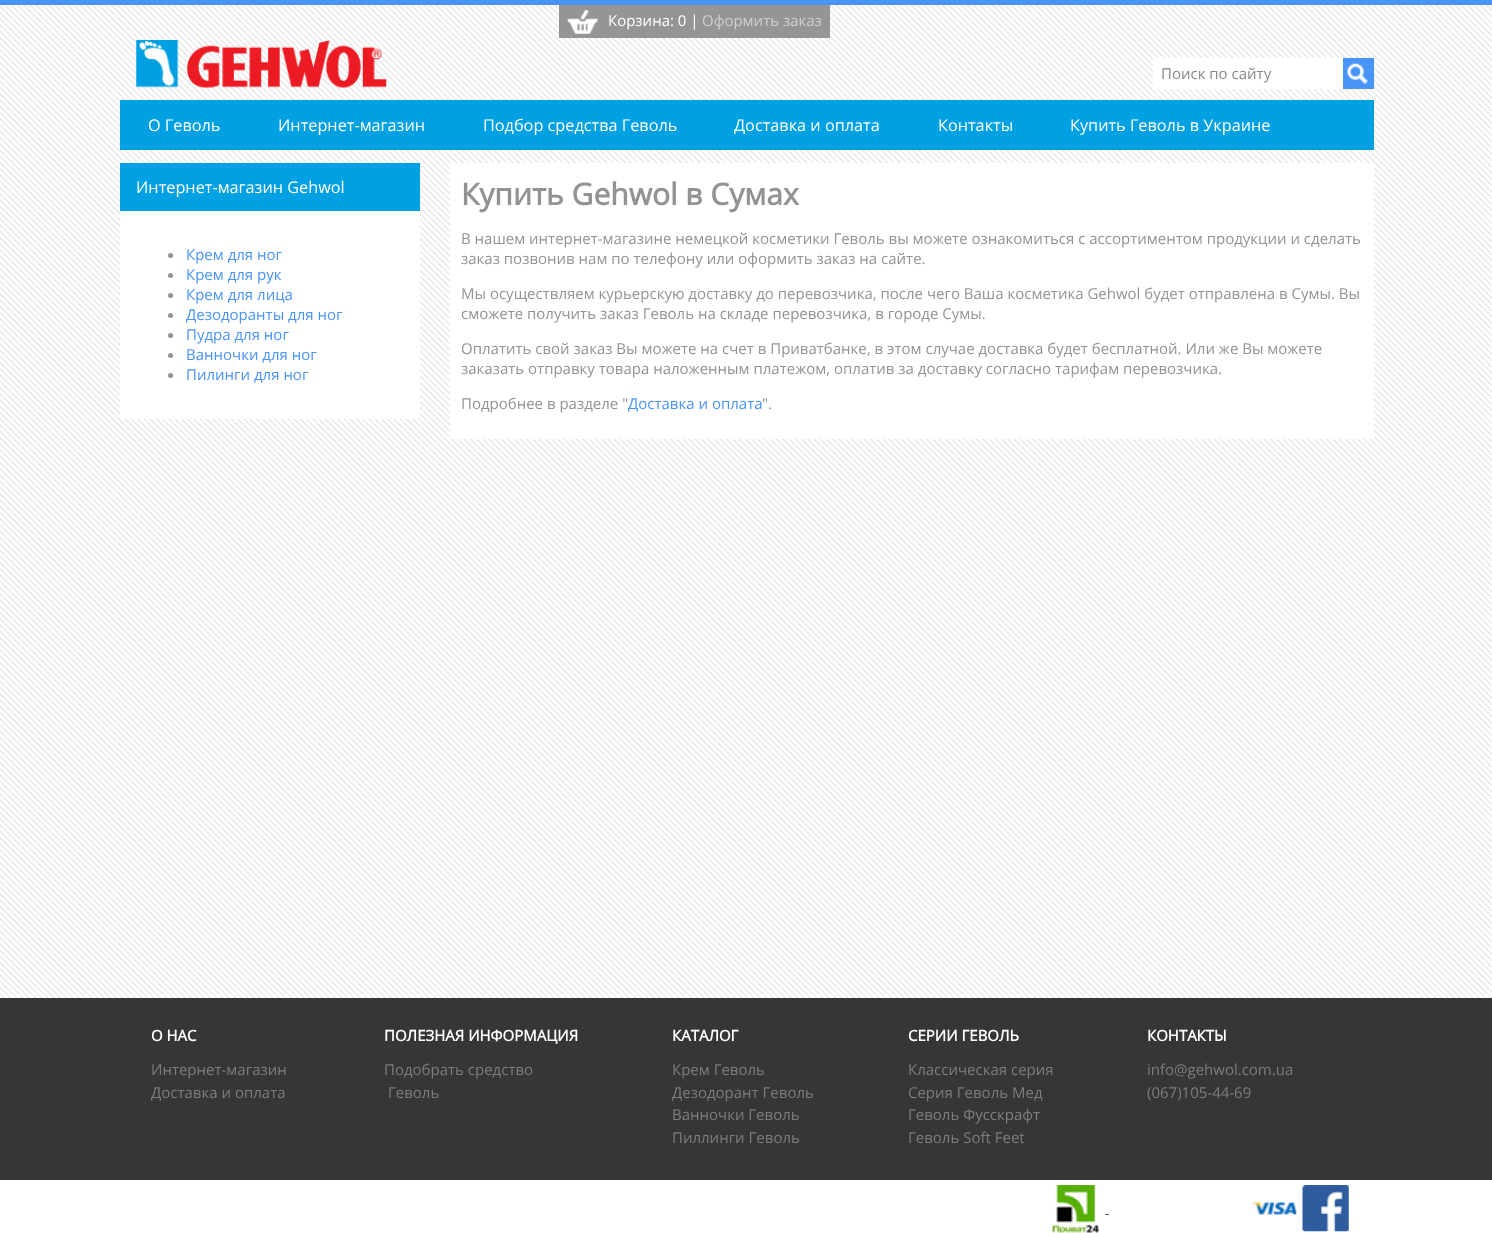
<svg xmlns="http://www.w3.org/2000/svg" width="1492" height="1233">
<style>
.a{font:15px Open Sans;fill:#fff}
.b{font:15px Open Sans;fill:#cecece}
.c{font:15px Open Sans;fill:#898989}
.d{font:16.25px Open Sans;fill:#fff}
.e{font:15px Open Sans;fill:#4894f7}
.f{font:bold 30px Open Sans;fill:#939393}
.g{font:15px Open Sans;fill:#939393}
.h{font:bold 15px Open Sans;fill:#fff}
.i{font:15px Open Sans;fill:#7d7d7d}
</style>
<rect width="100%" height="100%" fill="#fff"/>
<image href="1.png" x="0" y="5" width="1492" height="993"/>
<path fill="#4894f7" d="M0 0h1492v5H0z"/>
<path fill="#959595" d="M559 5h271v33H559z"/>
<image href="2.png" x="567" y="10" width="31" height="24"/>
<image href="3.png" x="136" y="40" width="251" height="48"/>
<path fill="#fff" d="M1153 58h190v31H1153z"/>
<path fill="#4894f7" d="M1343 58h31v31H1343z"/>
<image href="4.png" x="1347" y="63" width="21" height="21"/>
<path fill="#00a1e3" d="M120 100h1254v50H120z"/>
<path fill="#00a1e3" d="M120 163h300v48H120z"/>
<path fill="#fff" d="M120 211h300v208H120z"/>
<circle fill="#939393" cx="170.5" cy="255.5" r="2.5"/>
<circle fill="#939393" cx="170.5" cy="275.5" r="2.5"/>
<circle fill="#939393" cx="170.5" cy="295.5" r="2.5"/>
<circle fill="#939393" cx="170.5" cy="315.5" r="2.5"/>
<circle fill="#939393" cx="170.5" cy="335.5" r="2.5"/>
<circle fill="#939393" cx="170.5" cy="355.5" r="2.5"/>
<circle fill="#939393" cx="170.5" cy="375.5" r="2.5"/>
<path fill="#fff" d="M450 163h924v276H450z"/>
<path fill="#363636" d="M0 998h1492v182H0z"/>
<image href="5.png" x="1052" y="1185" width="47" height="48"/>
<path fill="#636363" d="M1105 1214h4v1H1105z"/>
<image href="6.png" x="1252" y="1202" width="45" height="13"/>
<image href="7.png" x="1302" y="1185" width="47" height="47"/>
<text class="a" x="608" y="26">Корзина: 0 |</text>
<text class="b" x="702" y="26">Оформить заказ</text>
<text class="c" x="1161" y="79">Поиск по сайту</text>
<text class="d" x="148" y="131">О Геволь</text>
<text class="d" x="278" y="131">Интернет-магазин</text>
<text class="d" x="483" y="131">Подбор средства Геволь</text>
<text class="d" x="734" y="131">Доставка и оплата</text>
<text class="d" x="938" y="131">Контакты</text>
<text class="d" x="1070" y="131">Купить Геволь в Украине</text>
<text class="d" x="136" y="193">Интернет-магазин Gehwol</text>
<text class="e" x="186" y="260">Крем для ног</text>
<text class="e" x="186" y="280">Крем для рук</text>
<text class="e" x="186" y="300">Крем для лица</text>
<text class="e" x="186" y="320">Дезодоранты для ног</text>
<text class="e" x="186" y="340">Пудра для ног</text>
<text class="e" x="186" y="360">Ванночки для ног</text>
<text class="e" x="186" y="380">Пилинги для ног</text>
<text class="f" x="461" y="205">Купить Gehwol в Сумах</text>
<text class="g" x="461" y="244">В нашем интернет-магазине немецкой косметики Геволь вы можете ознакомиться с ассортиментом продукции и сделать</text>
<text class="g" x="461" y="264">заказ позвонив нам по телефону или оформить заказ на сайте.</text>
<text class="g" x="461" y="299">Мы осуществляем курьерскую доставку до перевозчика, после чего Ваша косметика Gehwol будет отправлена в Сумы. Вы</text>
<text class="g" x="461" y="319">сможете получить заказ Геволь на складе перевозчика, в городе Сумы.</text>
<text class="g" x="461" y="354">Оплатить свой заказ Вы можете на счет в Приватбанке, в этом случае доставка будет бесплатной. Или же Вы можете</text>
<text class="g" x="461" y="374">заказать отправку товара наложенным платежом, оплатив за доставку согласно тарифам перевозчика.</text>
<text class="g" x="461" y="409">Подробнее в разделе "</text>
<text class="e" x="628" y="409">Доставка и оплата</text>
<text class="g" x="762" y="409">".</text>
<text class="h" x="151" y="1041">О НАС</text>
<text class="i" x="151" y="1075">Интернет-магазин</text>
<text class="i" x="151" y="1098">Доставка и оплата</text>
<text class="h" x="384" y="1041">ПОЛЕЗНАЯ ИНФОРМАЦИЯ</text>
<text class="i" x="384" y="1075">Подобрать средство</text>
<text class="i" x="388" y="1098">Геволь</text>
<text class="h" x="672" y="1041">КАТАЛОГ</text>
<text class="i" x="672" y="1075">Крем Геволь</text>
<text class="i" x="672" y="1098">Дезодорант Геволь</text>
<text class="i" x="672" y="1120">Ванночки Геволь</text>
<text class="i" x="672" y="1143">Пиллинги Геволь</text>
<text class="h" x="908" y="1041">СЕРИИ ГЕВОЛЬ</text>
<text class="i" x="908" y="1075">Классическая серия</text>
<text class="i" x="908" y="1098">Серия Геволь Мед</text>
<text class="i" x="908" y="1120">Геволь Фусскрафт</text>
<text class="i" x="908" y="1143">Геволь Soft Feet</text>
<text class="h" x="1147" y="1041">КОНТАКТЫ</text>
<text class="i" x="1147" y="1075">info@gehwol.com.ua</text>
<text class="i" x="1147" y="1098">(067)105-44-69</text>
</svg>
